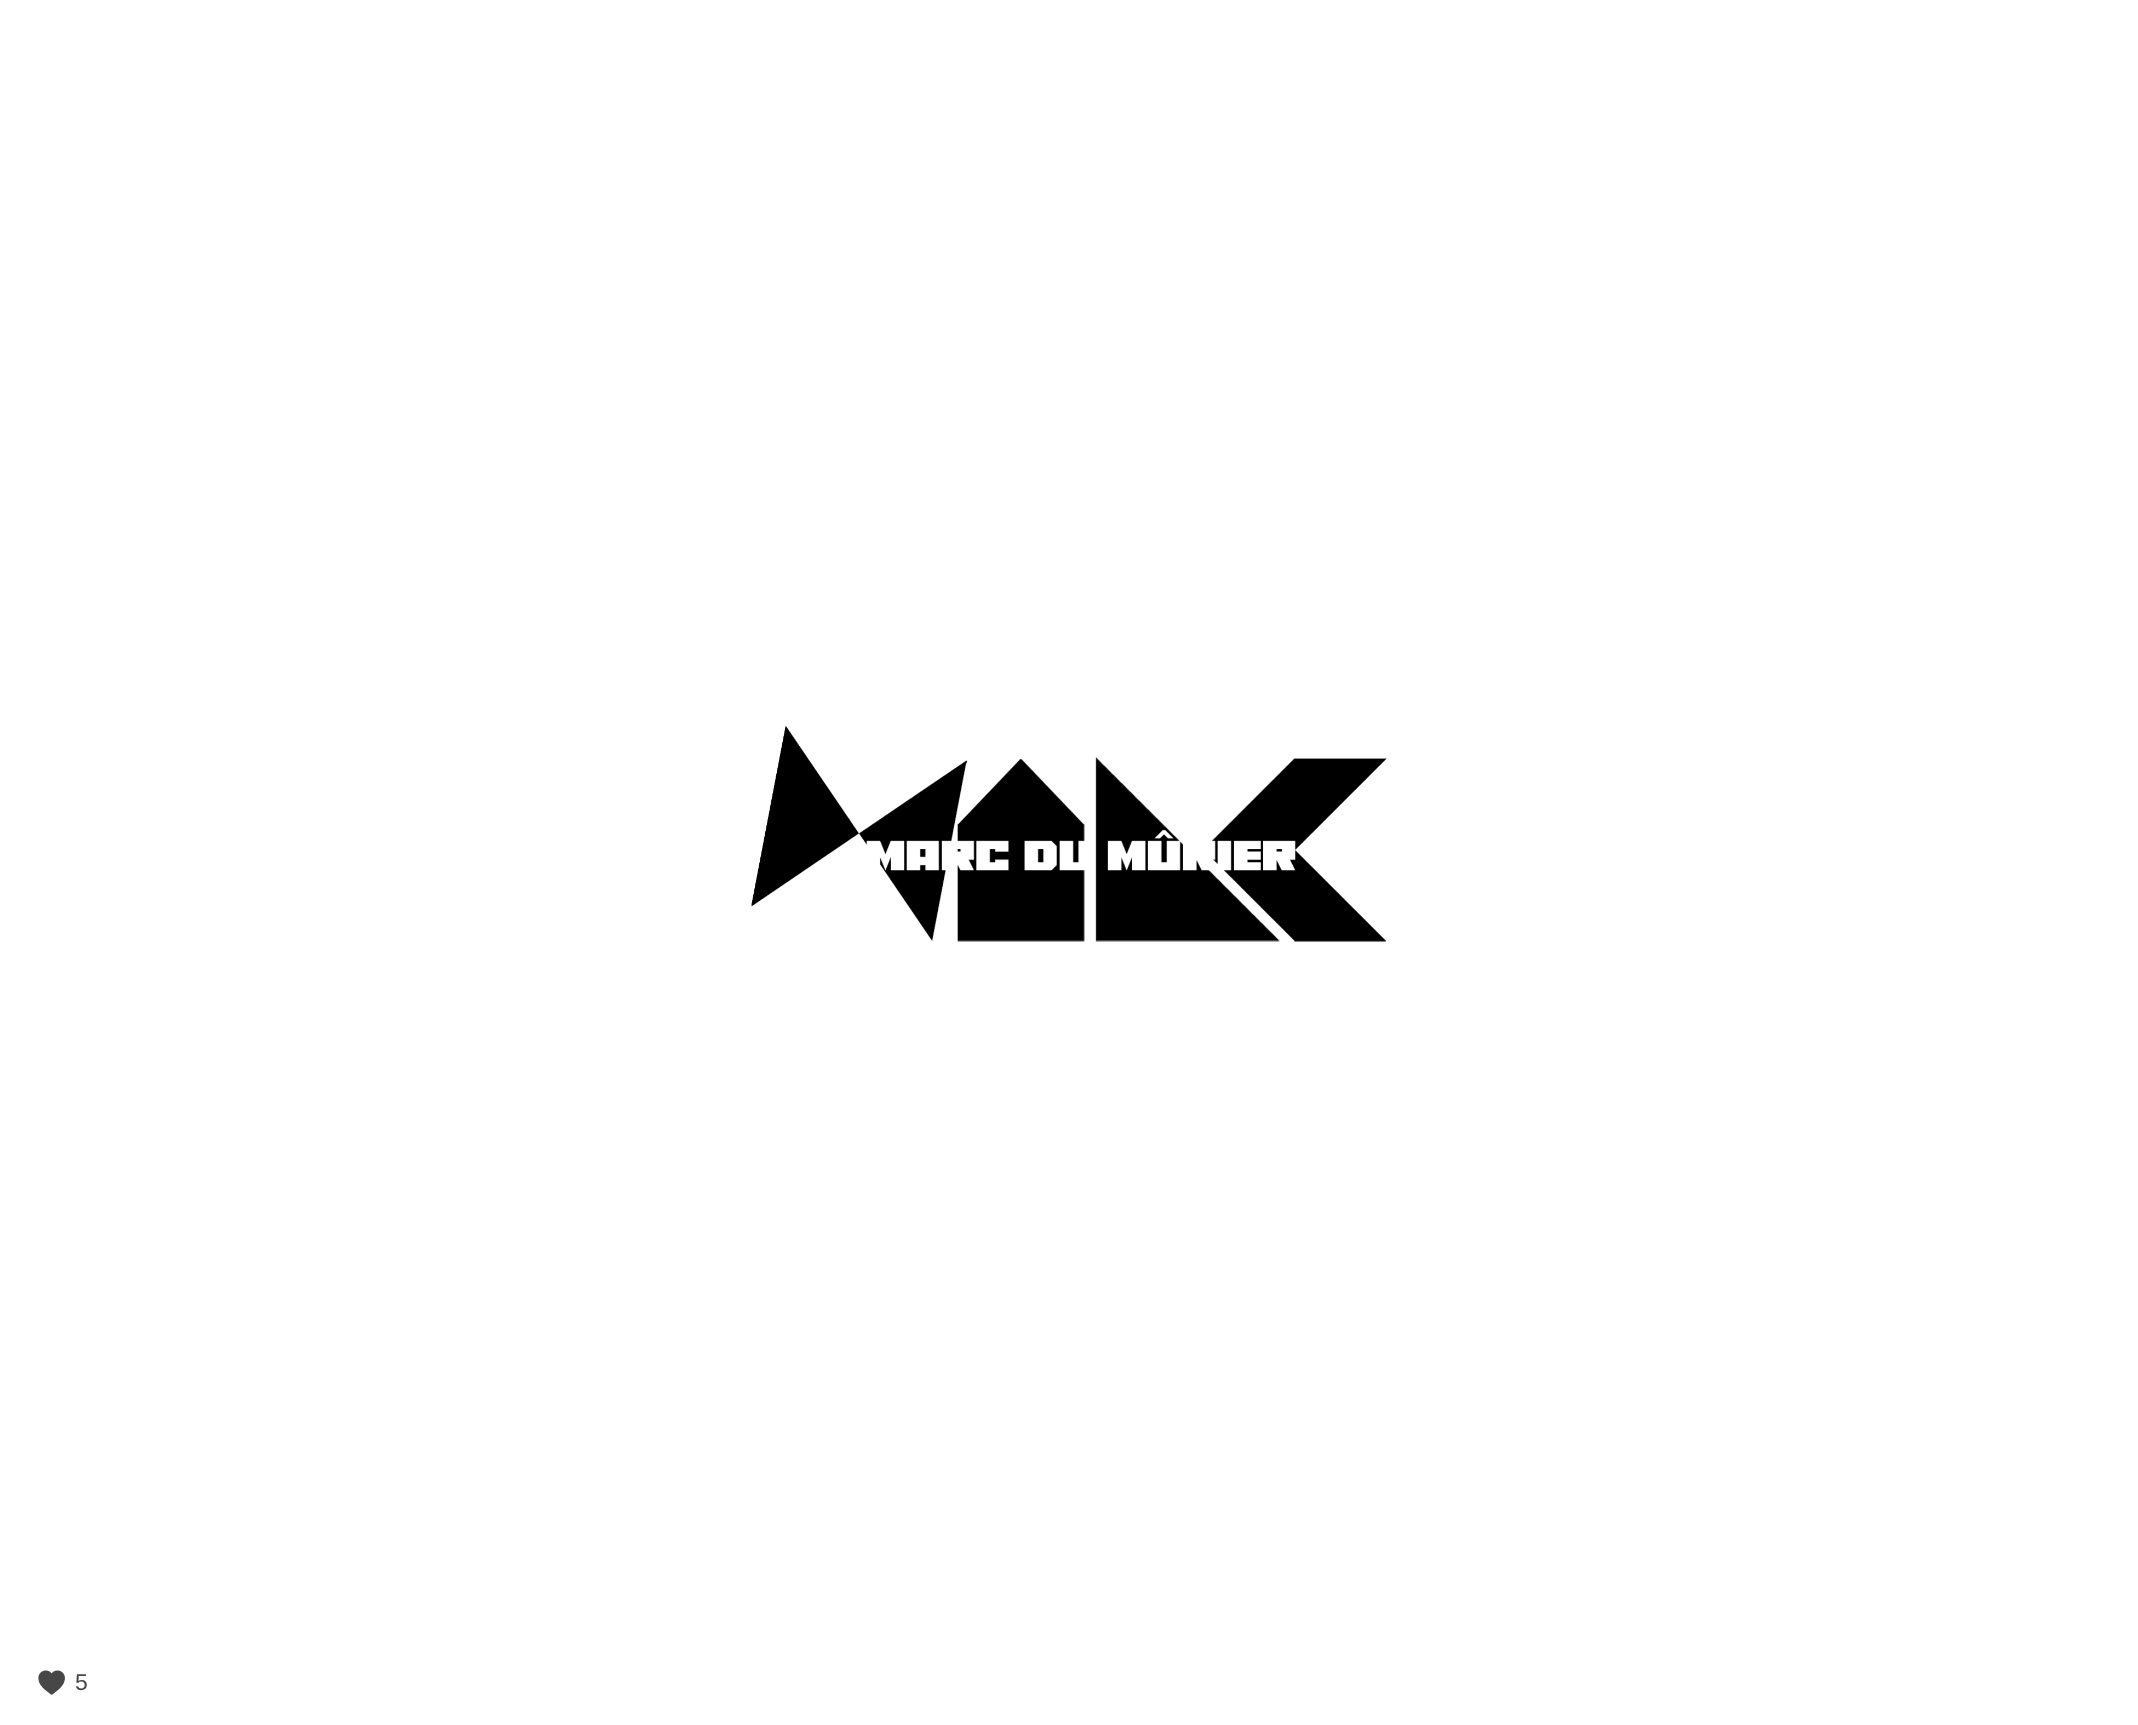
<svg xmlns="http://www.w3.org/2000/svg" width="2138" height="1725">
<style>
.a{font:23px Liberation Sans;fill:#474747}
</style>
<rect width="100%" height="100%" fill="#fff"/>
<image href="1.png" x="751" y="726" width="637" height="216"/>
<image href="2.png" x="38" y="1670" width="27" height="25"/>
<text class="a" x="75" y="1690">5</text>
</svg>
